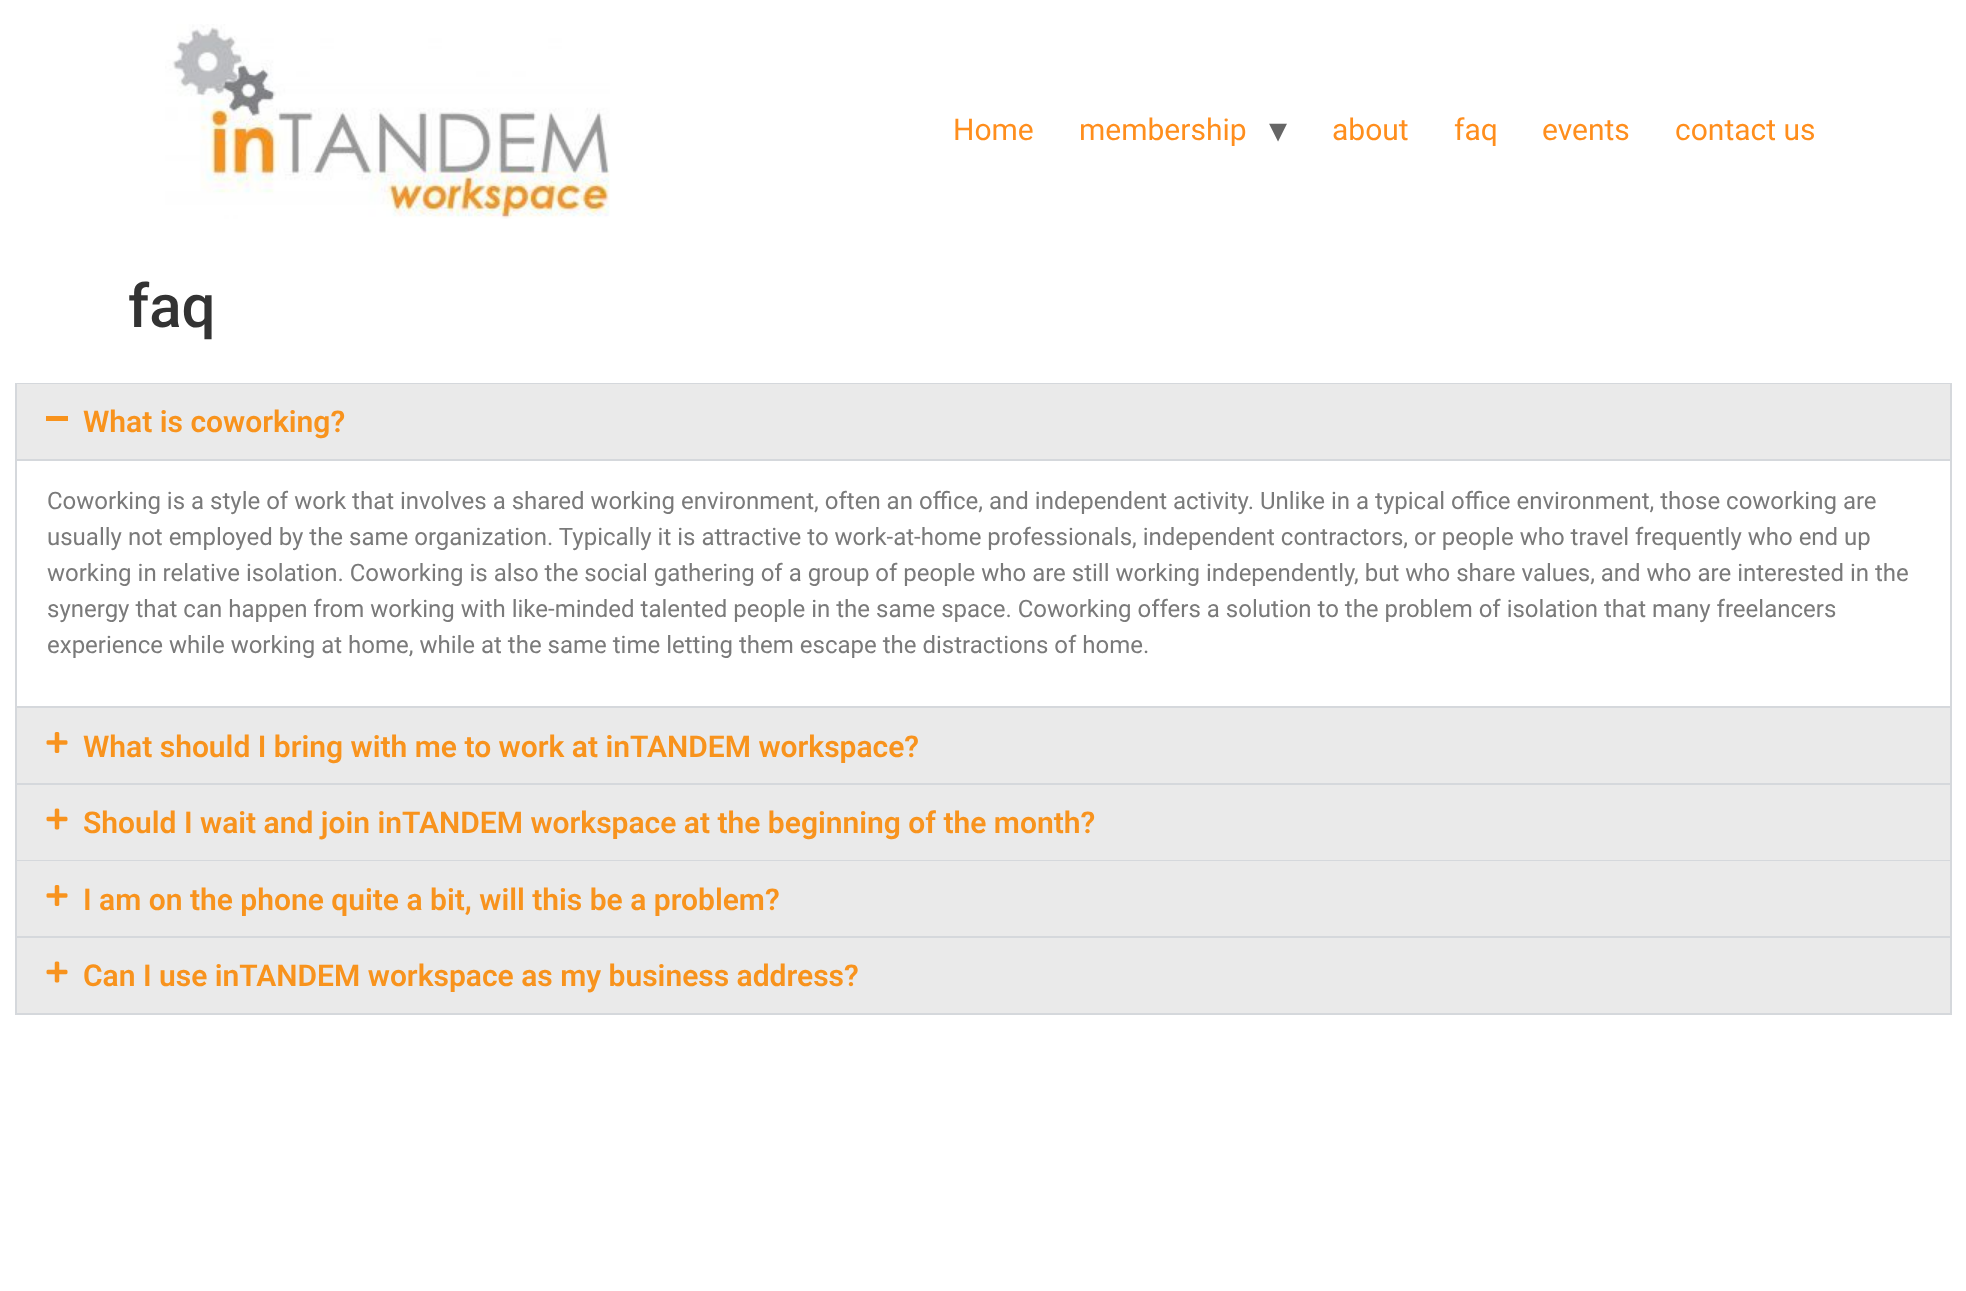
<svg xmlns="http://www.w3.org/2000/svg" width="1966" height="1291">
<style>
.a{font:30px Roboto;fill:#ff8e1d}
.b{font:36px DejaVu Sans;fill:#666}
.c{font:500 60px Roboto;fill:#333}
.d{font:600 30px Roboto;fill:#f8931d}
.e{font:24px Roboto;fill:#7a7a7a}
</style>
<rect width="100%" height="100%" fill="#fff"/>
<image href="1.png" x="165" y="24" width="445" height="195"/>
<path fill="none" stroke="#d5d8dc" stroke-width="2" d="M16 384h1935v323H16z"/>
<path fill="#eaeaea" d="M17 384h1933v75H17z"/>
<path fill="#f8931d" d="M46 416h22v5H46z"/>
<path fill="#d5d8dc" d="M17 459h1933v2H17z"/>
<path fill="#d5d8dc" d="M1950 708h2v306H1950z"/>
<path fill="#d5d8dc" d="M15 783h1937v2H15z"/>
<path fill="#d5d8dc" d="M15 708h2v77H15z"/>
<path fill="#eaeaea" d="M17 708h1933v75H17z"/>
<image href="2.png" x="46" y="732" width="22" height="21"/>
<path fill="#d5d8dc" d="M15 860h1937v1H15z"/>
<path fill="#d5d8dc" d="M15 785h2v76H15z"/>
<path fill="#eaeaea" d="M17 785h1933v75H17z"/>
<image href="3.png" x="46" y="808" width="22" height="22"/>
<path fill="#d5d8dc" d="M15 936h1937v2H15z"/>
<path fill="#d5d8dc" d="M15 861h2v77H15z"/>
<path fill="#eaeaea" d="M17 861h1933v75H17z"/>
<image href="2.png" x="46" y="885" width="22" height="21"/>
<path fill="#d5d8dc" d="M15 1013h1937v2H15z"/>
<path fill="#d5d8dc" d="M15 938h2v76H15z"/>
<path fill="#eaeaea" d="M17 938h1933v75H17z"/>
<image href="3.png" x="46" y="961" width="22" height="22"/>
<text class="a" x="953" y="140">Home</text>
<text class="a" x="1079" y="140">membership</text>
<text class="b" x="1269" y="142">▾</text>
<text class="a" x="1332" y="140">about</text>
<text class="a" x="1454" y="140">faq</text>
<text class="a" x="1542" y="140">events</text>
<text class="a" x="1675" y="140">contact us</text>
<text class="c" x="128" y="327">faq</text>
<text class="d" x="83" y="432">What is coworking?</text>
<text class="e" x="47" y="509">Coworking is a style of work that involves a shared working environment, often an office, and independent activity. Unlike in a typical office environment, those coworking are</text>
<text class="e" x="47" y="545">usually not employed by the same organization. Typically it is attractive to work-at-home professionals, independent contractors, or people who travel frequently who end up</text>
<text class="e" x="47" y="581">working in relative isolation. Coworking is also the social gathering of a group of people who are still working independently, but who share values, and who are interested in the</text>
<text class="e" x="47" y="617">synergy that can happen from working with like-minded talented people in the same space. Coworking offers a solution to the problem of isolation that many freelancers</text>
<text class="e" x="47" y="653">experience while working at home, while at the same time letting them escape the distractions of home.</text>
<text class="d" x="83" y="757">What should I bring with me to work at inTANDEM workspace?</text>
<text class="d" x="83" y="833">Should I wait and join inTANDEM workspace at the beginning of the month?</text>
<text class="d" x="83" y="910">I am on the phone quite a bit, will this be a problem?</text>
<text class="d" x="83" y="986">Can I use inTANDEM workspace as my business address?</text>
</svg>
